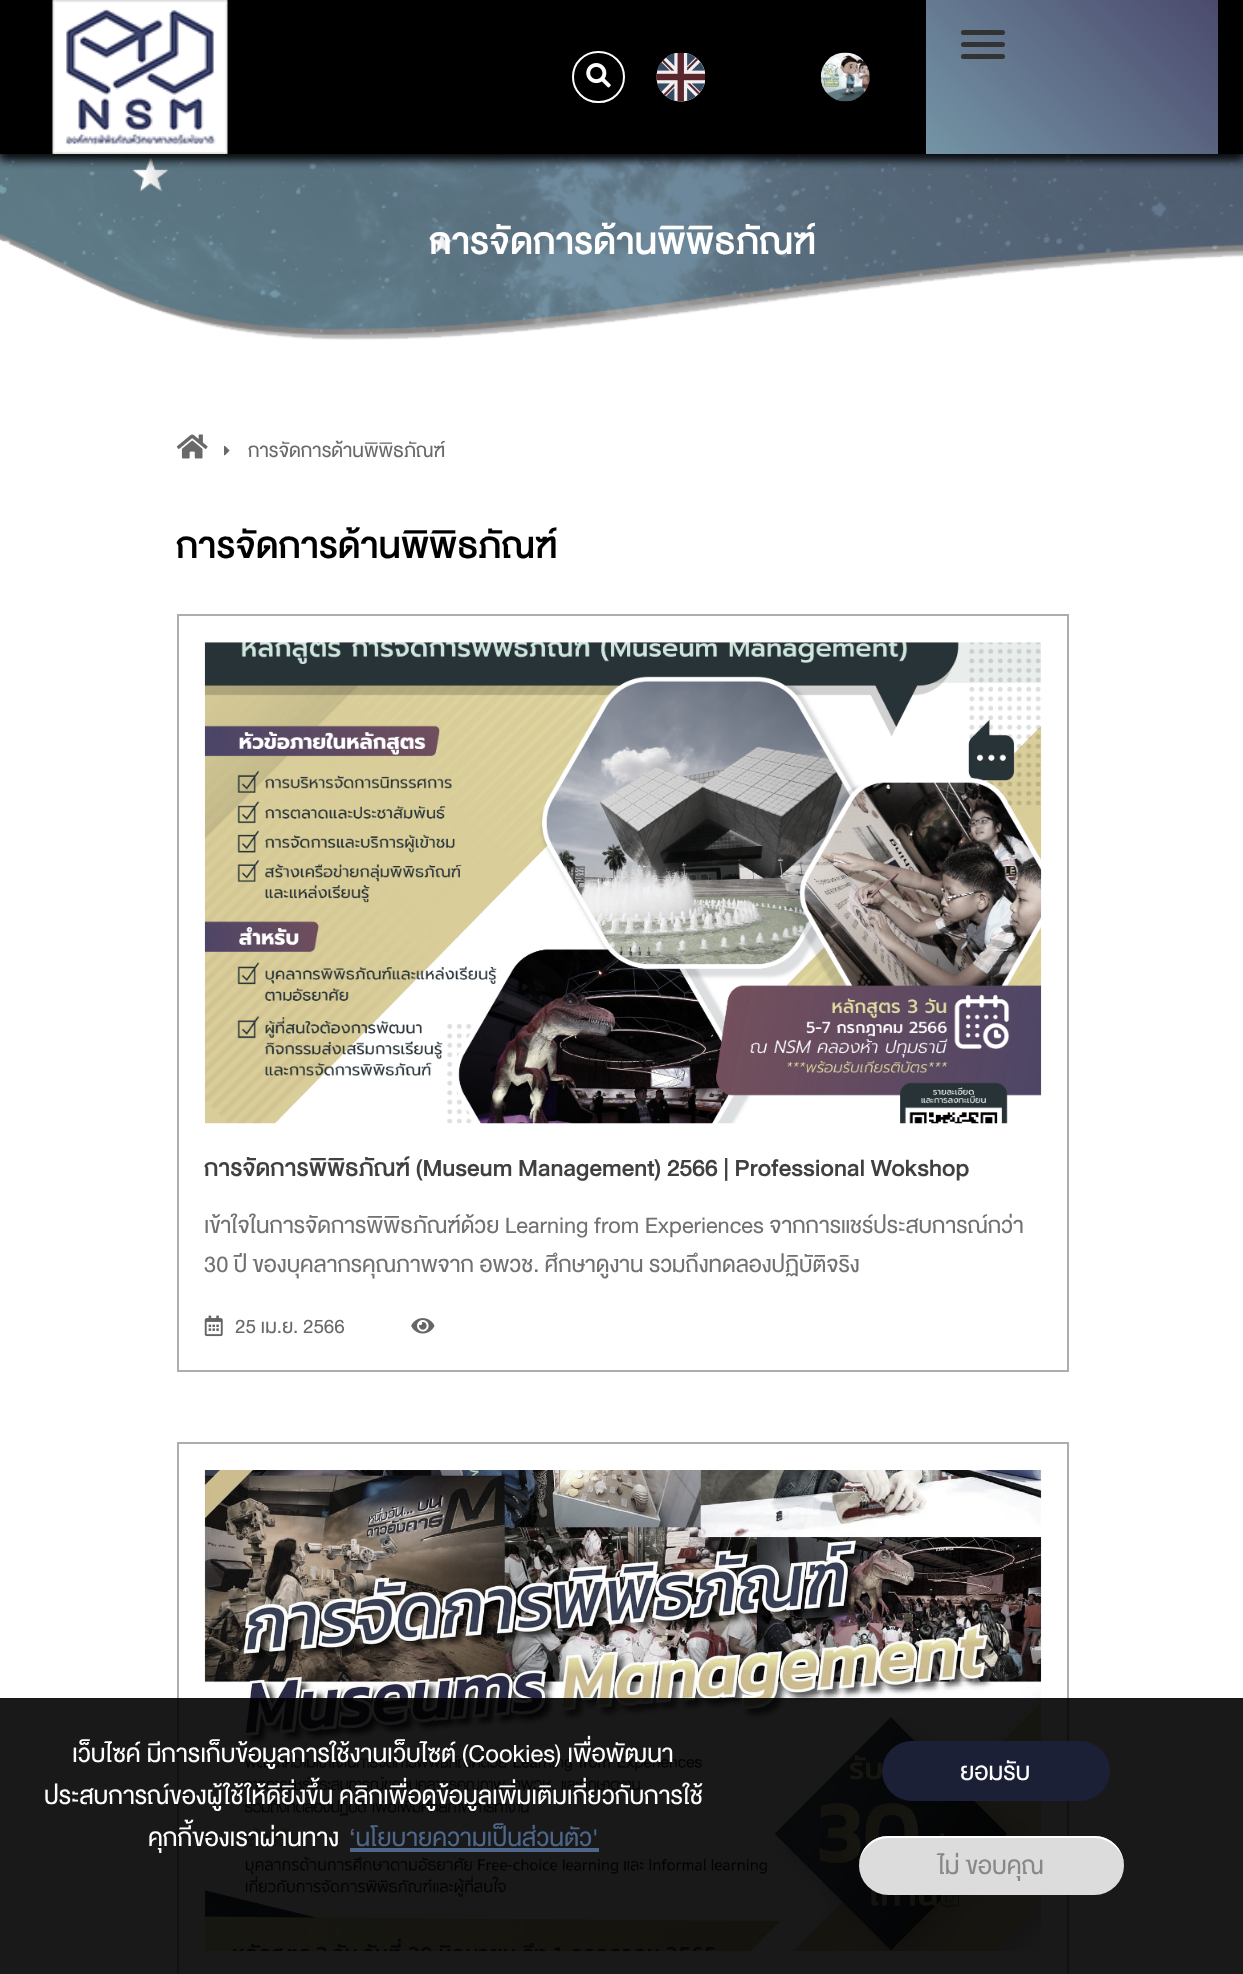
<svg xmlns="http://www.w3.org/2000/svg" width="1243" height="1974">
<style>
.a{font:500 52.5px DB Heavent;fill:#fff}
.b{font:27.5px DB Heavent;fill:#696969}
.c{font:500 51.75px DB Heavent;fill:#000}
.d{font:500 33.5px DB Heavent;fill:#404040}
.e{font:31.95px DB Heavent;fill:#717171}
.f{font:35px DB Heavent;fill:#fff}
.g{font:35px DB Heavent;fill:#4e668a}
.h{font:35px DB Heavent;fill:#888}
</style>
<defs>
<linearGradient id="g1" gradientUnits="userSpaceOnUse" x1="960" y1="189" x2="1183" y2="-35"><stop offset="0" stop-color="#7495a6"/><stop offset="1" stop-color="#4b4a6d"/></linearGradient>
<clipPath id="clip1"><path d="M205 1208h836v77H205z"/></clipPath>
</defs>
<rect width="100%" height="100%" fill="#fff"/>
<image href="5.png" x="0" y="154" width="1243" height="186"/>
<path fill="#000000b3" filter="blur(5px)" d="M0 5h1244v154H0z"/>
<path fill="#000000b3" filter="blur(5px)" d="M0 5h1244v154H0z"/>
<path fill="#000" d="M0 0h1243v154H0z"/>
<image href="1.png" x="52" y="0" width="176" height="154"/>
<rect fill="none" stroke="#fff" stroke-width="2" x="573" y="52" width="51" height="50" rx="25"/>
<image href="2.png" x="586" y="63" width="25" height="25"/>
<image href="3.png" x="656" y="53" width="49" height="49"/>
<image href="4.png" x="820" y="52" width="50" height="50"/>
<path fill="url(#g1)" d="M926 0h292v154H926z"/>
<rect fill="#333" x="961" y="30" width="44" height="5" rx="2.5"/>
<rect fill="#333" x="961" y="42" width="44" height="5" rx="2.5"/>
<rect fill="#333" x="961" y="54" width="44" height="5" rx="2.5"/>
<image href="6.png" x="176" y="434" width="32" height="25"/>
<image href="7.png" x="224" y="445" width="6" height="11"/>
<path fill="none" stroke="#adadad" stroke-width="2" d="M178 615h890v756H178z"/>
<image href="8.png" x="204" y="642" width="838" height="482"/>
<image href="9.png" x="204" y="1315" width="19" height="22"/>
<image href="10.png" x="411" y="1318" width="24" height="16"/>
<path fill="none" stroke="#adadad" stroke-width="2" d="M178 1443h890v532H178z"/>
<image href="11.png" x="204" y="1470" width="838" height="482"/>
<path fill="#000000e6" d="M0 1698h1243v276H0z"/>
<path fill="#4e668a" d="M350 1848h249v4H350z"/>
<rect fill="#1b2037" x="882" y="1741" width="228" height="60" rx="30"/>
<rect fill="#dcdcdc" x="859" y="1836" width="265" height="59" rx="29.5"/>
<path fill="#fff" d="M889 1838h205c16 0 30 13 30 28c0-17-13-30-30-30h-206c-16 0-29 13-29 30c0-15 14-28 30-28z"/>
<text class="a" x="429" y="254">การจัดการด้านพิพิธภัณฑ์</text>
<text class="b" x="248" y="457">การจัดการด้านพิพิธภัณฑ์</text>
<text class="c" x="176" y="558">การจัดการด้านพิพิธภัณฑ์</text>
<text class="d" x="204" y="1176">การจัดการพิพิธภัณฑ์ (Museum Management) 2566 | Professional Wokshop</text>
<g clip-path="url(#clip1)">
<text class="e" x="204" y="1233">เข้าใจในการจัดการพิพิธภัณฑ์ด้วย Learning from Experiences จากการแชร์ประสบการณ์กว่า</text>
</g>
<text class="e" x="204" y="1272">30 ปี ของบุคลากรคุณภาพจาก อพวช. ศึกษาดูงาน รวมถึงทดลองปฏิบัติจริง</text>
<text class="b" x="235" y="1333">25 เม.ย. 2566</text>
<text class="f" x="72" y="1762">เว็บไซค์ มีการเก็บข้อมูลการใช้งานเว็บไซต์ (Cookies) เพื่อพัฒนา</text>
<text class="f" x="44" y="1804">ประสบการณ์ของผู้ใช้ให้ดียิ่งขึ้น คลิกเพื่อดูข้อมูลเพิ่มเติมเกี่ยวกับการใช้</text>
<text class="f" x="148" y="1846">คุกกี้ของเราผ่านทาง</text>
<text class="g" x="349" y="1846">‘นโยบายความเป็นส่วนตัว'</text>
<text class="f" x="960" y="1780">ยอมรับ</text>
<text class="h" x="938" y="1874">ไม่ ขอบคุณ</text>
</svg>
